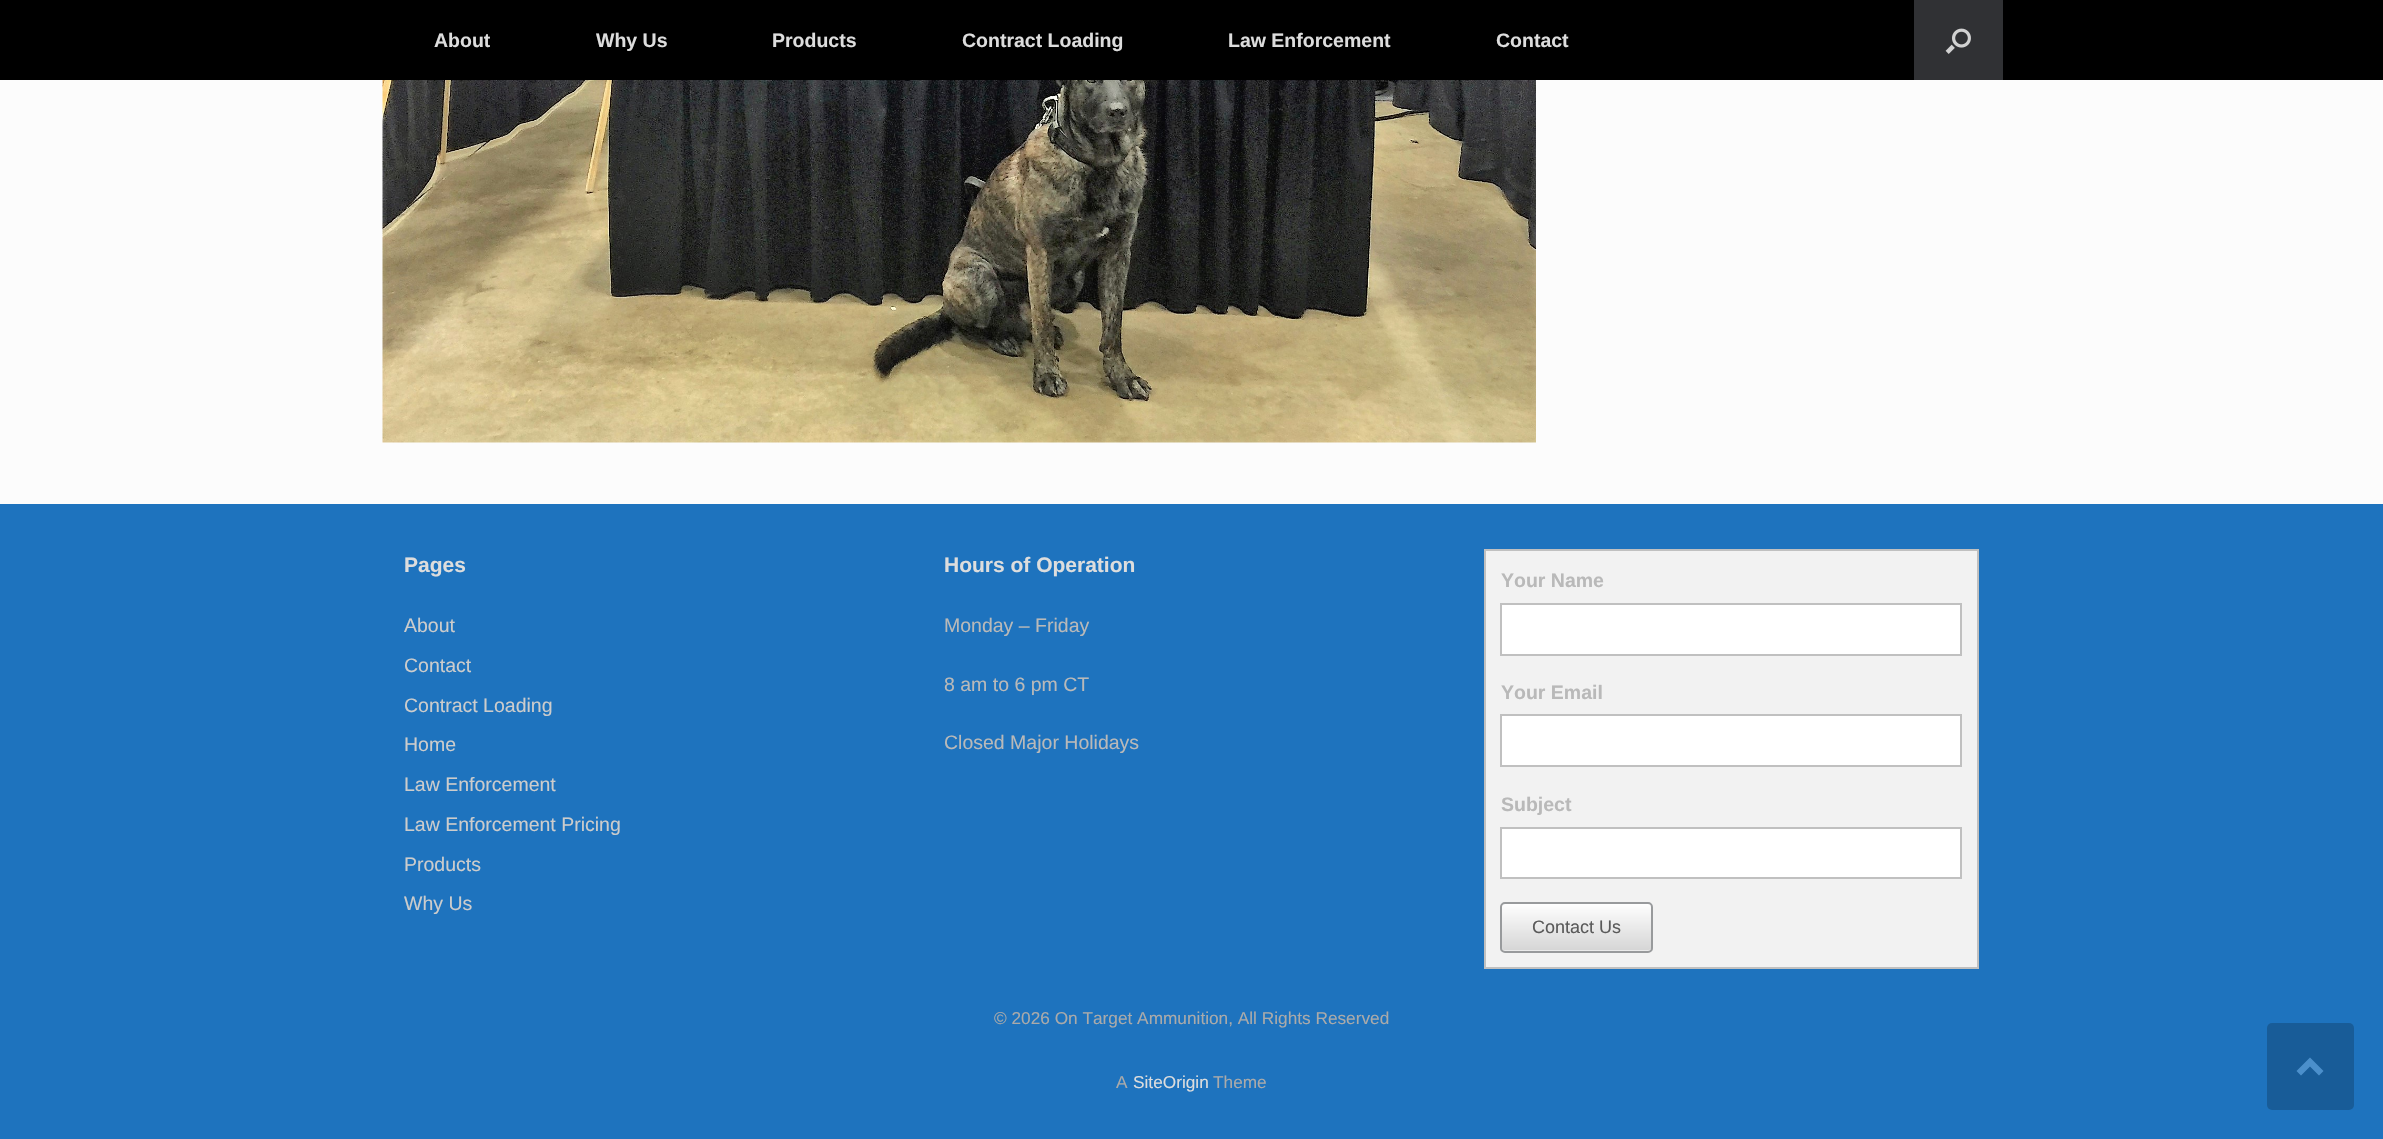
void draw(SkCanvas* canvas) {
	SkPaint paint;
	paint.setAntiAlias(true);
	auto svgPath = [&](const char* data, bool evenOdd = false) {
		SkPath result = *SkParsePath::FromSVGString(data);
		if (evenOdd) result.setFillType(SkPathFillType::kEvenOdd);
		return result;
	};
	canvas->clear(0xff1e73be);
	paint.setColor(0xff000000);
	canvas->drawRect(SkRect::MakeXYWH(0, 0, 2383, 80), paint);
	SkFont f1(fontMgr->matchFamilyStyle("Liberation Sans", SkFontStyle::Bold()), 19.5);
	f1.setSubpixel(true);
	paint.setColor(0xffdddddd);
	canvas->drawString("About", 434, 47, f1, paint);
	canvas->drawString("Why Us", 596, 47, f1, paint);
	canvas->drawString("Products", 772, 47, f1, paint);
	canvas->drawString("Contract Loading", 962, 47, f1, paint);
	canvas->drawString("Law Enforcement", 1228, 47, f1, paint);
	canvas->drawString("Contact", 1496, 47, f1, paint);
	paint.setColor(0xff303134);
	canvas->drawRect(SkRect::MakeXYWH(1914, 0, 89, 80), paint);
	canvas->drawImageRect(SkImages::DeferredFromEncodedData(SkData::MakeFromFileName("img1.png")), SkRect::MakeXYWH(1945, 28, 26, 26), SkSamplingOptions());
	paint.setColor(0xfffcfcfc);
	canvas->drawRect(SkRect::MakeXYWH(0, 80, 2383, 424), paint);
	canvas->drawImageRect(SkImages::DeferredFromEncodedData(SkData::MakeFromFileName("img2.png")), SkRect::MakeXYWH(382, 80, 1154, 363), SkSamplingOptions());
	SkFont f2(fontMgr->matchFamilyStyle("Liberation Sans", SkFontStyle::Bold()), 21);
	f2.setSubpixel(true);
	paint.setColor(0xffdddddd);
	canvas->drawString("Pages", 404, 572, f2, paint);
	SkFont f3(fontMgr->matchFamilyStyle("Liberation Sans", SkFontStyle::Normal()), 19.5);
	f3.setSubpixel(true);
	paint.setColor(0xffcccccc);
	canvas->drawString("About", 404, 632, f3, paint);
	canvas->drawString("Contact", 404, 672, f3, paint);
	canvas->drawString("Contract Loading", 404, 712, f3, paint);
	canvas->drawString("Home", 404, 751, f3, paint);
	canvas->drawString("Law Enforcement", 404, 791, f3, paint);
	canvas->drawString("Law Enforcement Pricing", 404, 831, f3, paint);
	canvas->drawString("Products", 404, 871, f3, paint);
	canvas->drawString("Why Us", 404, 910, f3, paint);
	paint.setColor(0xffdddddd);
	canvas->drawString("Hours of Operation", 944, 572, f2, paint);
	paint.setColor(0xffb9b9b9);
	canvas->drawString("Monday – Friday", 944, 632, f3, paint);
	canvas->drawString("8 am to 6 pm CT", 944, 691, f3, paint);
	canvas->drawString("Closed Major Holidays", 944, 749, f3, paint);
	paint.setColor(0xfff2f2f2);
	canvas->drawRect(SkRect::MakeXYWH(1485, 550, 493, 418), paint);
	paint.setStroke(true);
	paint.setStrokeWidth(2);
	paint.setColor(0xffc0c0c0);
	canvas->drawRect(SkRect::MakeXYWH(1485, 550, 493, 418), paint);
	paint.setStroke(false);
	paint.setColor(0xffb9b9b9);
	canvas->drawString("Your Name", 1501, 587, f1, paint);
	paint.setColor(0xffffffff);
	canvas->drawRect(SkRect::MakeXYWH(1501, 604, 460, 51), paint);
	paint.setStroke(true);
	paint.setColor(0xffc0c0c0);
	canvas->drawRect(SkRect::MakeXYWH(1501, 604, 460, 51), paint);
	paint.setStroke(false);
	paint.setColor(0xffb9b9b9);
	canvas->drawString("Your Email", 1501, 699, f1, paint);
	paint.setColor(0xffffffff);
	canvas->drawRect(SkRect::MakeXYWH(1501, 715, 460, 51), paint);
	paint.setStroke(true);
	paint.setColor(0xffc0c0c0);
	canvas->drawRect(SkRect::MakeXYWH(1501, 715, 460, 51), paint);
	paint.setStroke(false);
	paint.setColor(0xffb9b9b9);
	canvas->drawString("Subject", 1501, 811, f1, paint);
	paint.setColor(0xffffffff);
	canvas->drawRect(SkRect::MakeXYWH(1501, 828, 460, 50), paint);
	paint.setStroke(true);
	paint.setColor(0xffc0c0c0);
	canvas->drawRect(SkRect::MakeXYWH(1501, 828, 460, 50), paint);
	canvas->save();
	canvas->clipPath(svgPath("M1505 902H1648C1651 902 1653 904 1653 907V948C1653 951 1651 953 1648 953H1505C1502 953 1500 951 1500 948V907C1500 904 1502 902 1505 902Z"), true);
	paint.setStroke(false);
	{
		const SkColor colors[] = {0xffd5d5d5, 0xffffffff};
		const float stops[] = {0, 1};
		const SkPoint ends[] = {{1502, 951}, {1502, 903}};
		paint.setShader(SkGradientShader::MakeLinear(ends, colors, stops, 2, SkTileMode::kClamp));
		paint.setAlpha(255);
	}
	canvas->drawRect(SkRect::MakeXYWH(1500, 903, 153, 48), paint);
	canvas->restore();
	paint.setShader(nullptr);
	paint.setColor(0xffeaeaea);
	canvas->drawPath(svgPath("M1502 946V948C1502 950 1503 951 1505 951H1649C1651 951 1652 950 1652 948V946C1652 948 1650 950 1648 950H1504C1503 950 1502 948 1502 946Z"), paint);
	paint.setStroke(true);
	paint.setColor(0xff989a9c);
	canvas->drawRoundRect(SkRect::MakeXYWH(1501, 903, 151, 49), 4, 4, paint);
	SkFont f4(fontMgr->matchFamilyStyle("Liberation Sans", SkFontStyle::Normal()), 18);
	f4.setSubpixel(true);
	paint.setStroke(false);
	paint.setColor(0xff5a5a5a);
	canvas->drawString("Contact Us", 1532, 933, f4, paint);
	SkFont f5(fontMgr->matchFamilyStyle("Liberation Sans", SkFontStyle::Normal()), 17.25);
	f5.setSubpixel(true);
	paint.setColor(0xffaaaaaa);
	canvas->drawString("© 2026 On Target Ammunition, All Rights Reserved", 994, 1024, f5, paint);
	canvas->drawString("A", 1116, 1088, f5, paint);
	paint.setColor(0xffdddddd);
	canvas->drawString("SiteOrigin", 1133, 1088, f5, paint);
	paint.setColor(0xffaaaaaa);
	canvas->drawString("Theme", 1213, 1088, f5, paint);
	paint.setColor(0xff185c98);
	canvas->drawRoundRect(SkRect::MakeXYWH(2267, 1023, 87, 87), 5, 5, paint);
	paint.setColor(0xff4b8fcb);
	canvas->drawPath(svgPath("M2323.5 1071L2310 1057.5L2296.5 1071L2301 1075.5L2310 1066.5L2319 1075.5Z"), paint);
}
